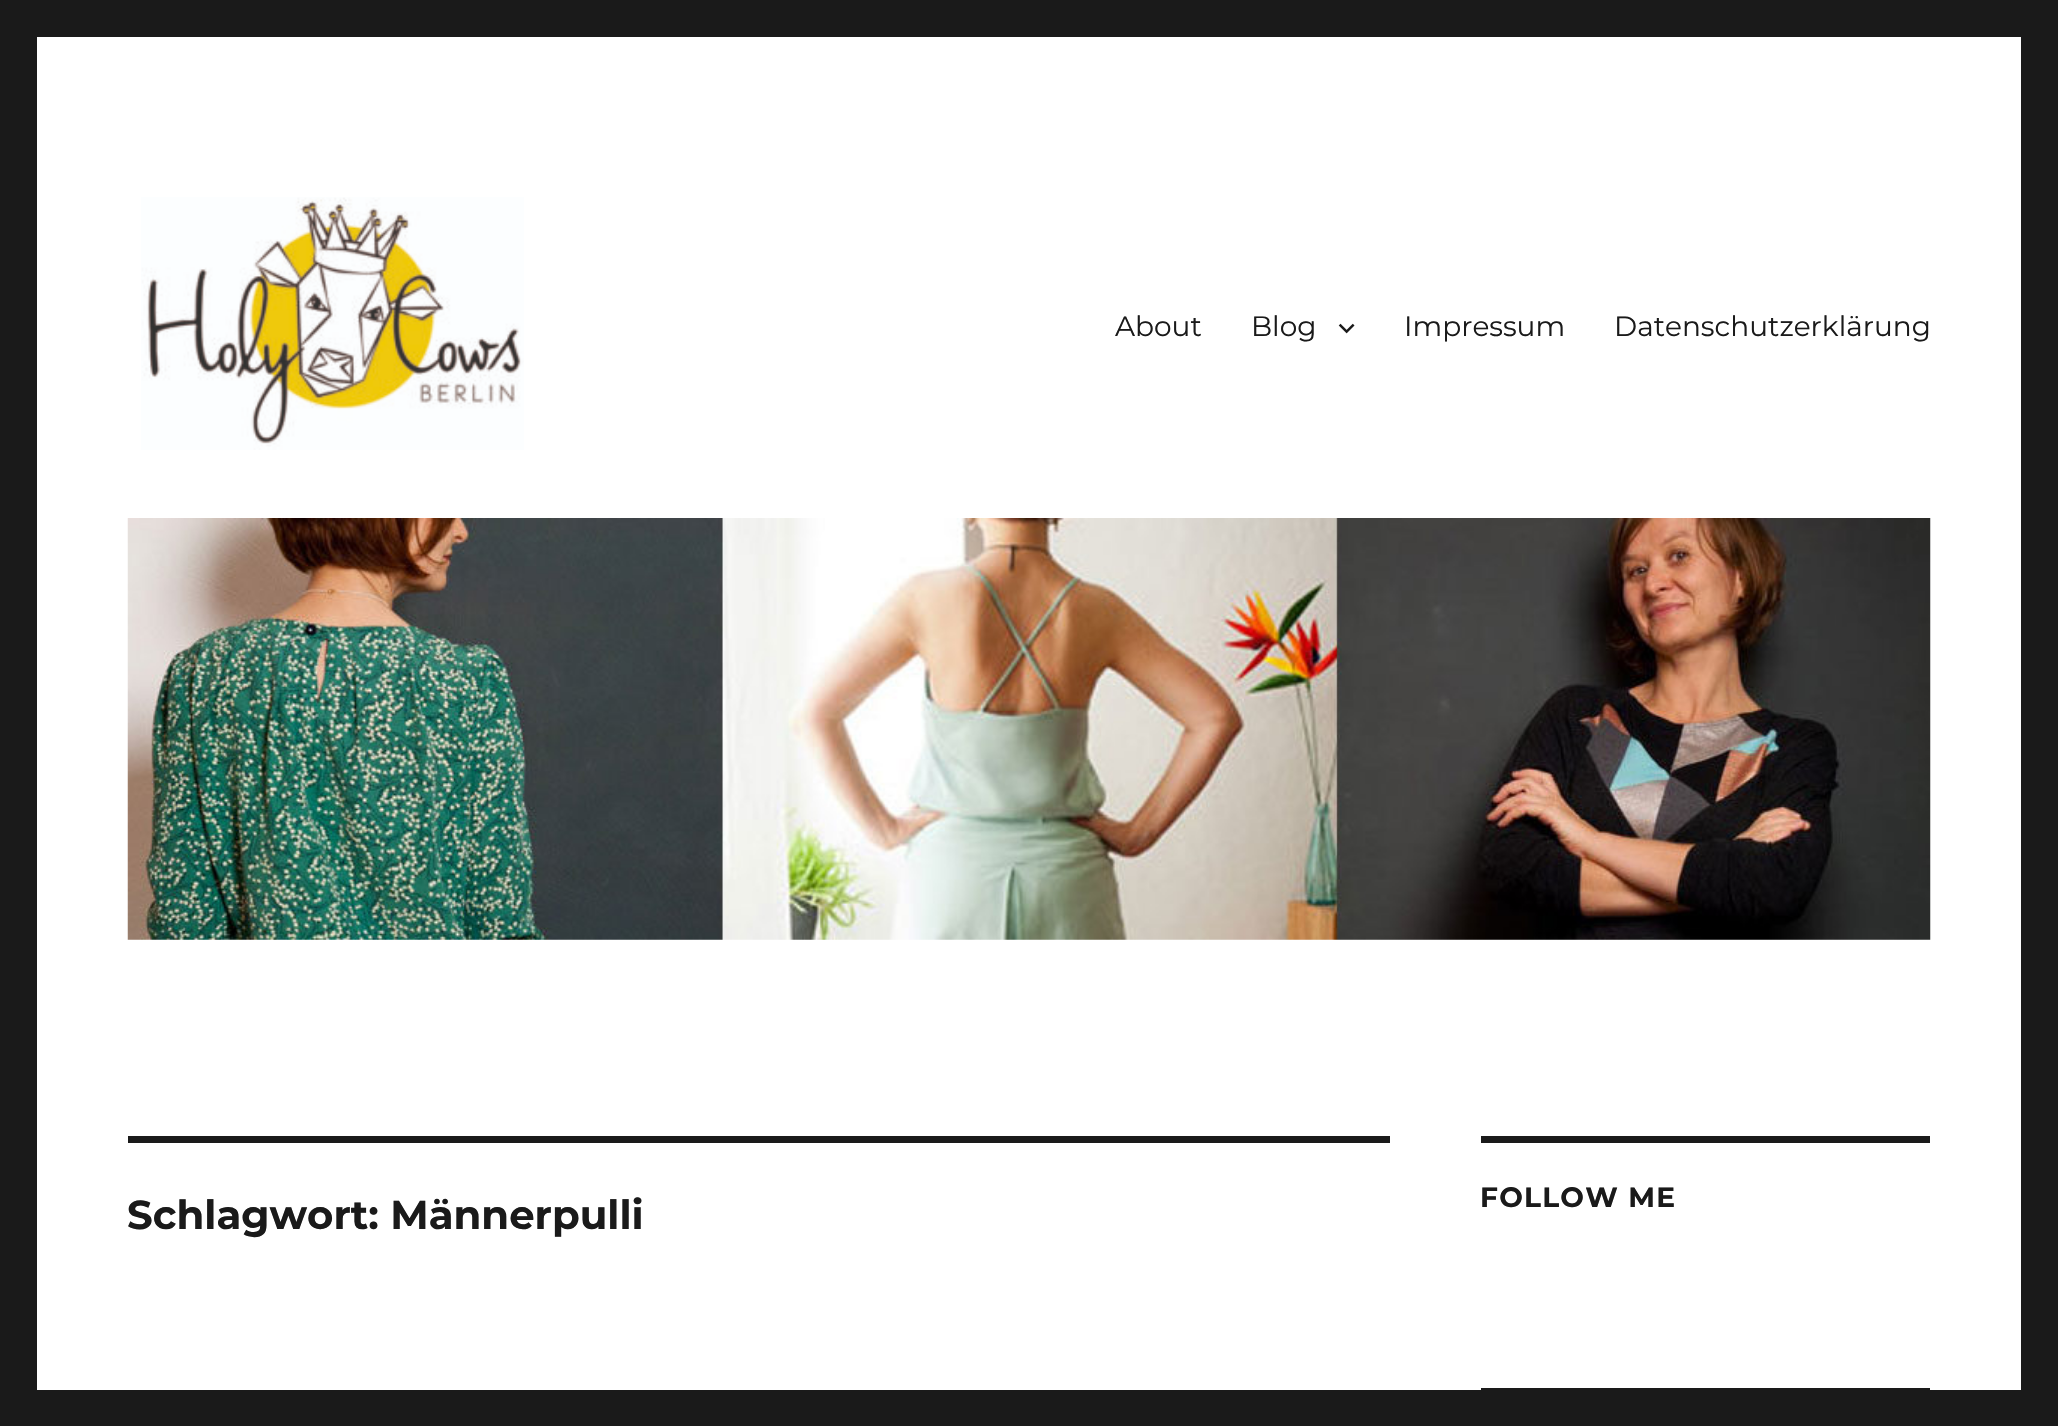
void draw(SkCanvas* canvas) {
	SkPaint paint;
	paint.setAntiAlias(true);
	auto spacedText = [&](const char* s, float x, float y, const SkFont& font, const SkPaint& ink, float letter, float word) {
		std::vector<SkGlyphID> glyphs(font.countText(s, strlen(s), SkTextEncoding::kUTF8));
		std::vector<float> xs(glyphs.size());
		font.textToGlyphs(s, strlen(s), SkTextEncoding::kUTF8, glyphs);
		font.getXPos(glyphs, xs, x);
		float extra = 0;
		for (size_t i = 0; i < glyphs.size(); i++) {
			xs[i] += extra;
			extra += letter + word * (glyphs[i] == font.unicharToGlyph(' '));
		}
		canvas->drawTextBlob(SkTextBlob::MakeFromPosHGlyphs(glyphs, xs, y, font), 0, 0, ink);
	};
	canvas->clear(0xff1a1a1a);
	paint.setColor(0xffffffff);
	canvas->drawRect(SkRect::MakeXYWH(37, 37, 1984, 1353), paint);
	canvas->drawImageRect(SkImages::DeferredFromEncodedData(SkData::MakeFromFileName("img1.png")), SkRect::MakeXYWH(141, 197, 383, 253), SkSamplingOptions());
	SkFont f1(fontMgr->matchFamilyStyle("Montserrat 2", SkFontStyle(100, SkFontStyle::kNormal_Width, SkFontStyle::kUpright_Slant)), 28);
	f1.setSubpixel(true);
	paint.setColor(0xff1a1a1a);
	canvas->drawString("About", 1115, 336, f1, paint);
	canvas->drawString("Blog", 1251, 336, f1, paint);
	canvas->drawImageRect(SkImages::DeferredFromEncodedData(SkData::MakeFromFileName("img2.png")), SkRect::MakeXYWH(1338, 323, 17, 11), SkSamplingOptions());
	canvas->drawString("Impressum", 1404, 336, f1, paint);
	canvas->drawString("Datenschutzerklärung", 1614, 336, f1, paint);
	canvas->drawImageRect(SkImages::DeferredFromEncodedData(SkData::MakeFromFileName("img3.png")), SkRect::MakeXYWH(127, 518, 1804, 422), SkSamplingOptions());
	canvas->drawRect(SkRect::MakeXYWH(128, 1136, 1262, 7), paint);
	SkFont f2(fontMgr->matchFamilyStyle("Montserrat", SkFontStyle(100, SkFontStyle::kNormal_Width, SkFontStyle::kUpright_Slant)), 40.25);
	f2.setSubpixel(true);
	canvas->drawString("Schlagwort: Männerpulli", 127, 1229, f2, paint);
	canvas->drawRect(SkRect::MakeXYWH(1481, 1136, 449, 7), paint);
	SkFont f3(fontMgr->matchFamilyStyle("Montserrat", SkFontStyle(100, SkFontStyle::kNormal_Width, SkFontStyle::kUpright_Slant)), 28);
	f3.setSubpixel(true);
	spacedText("FOLLOW ME", 1480, 1207, f3, paint, 1.25, 0);
	canvas->drawRect(SkRect::MakeXYWH(1481, 1388, 449, 2), paint);
}
